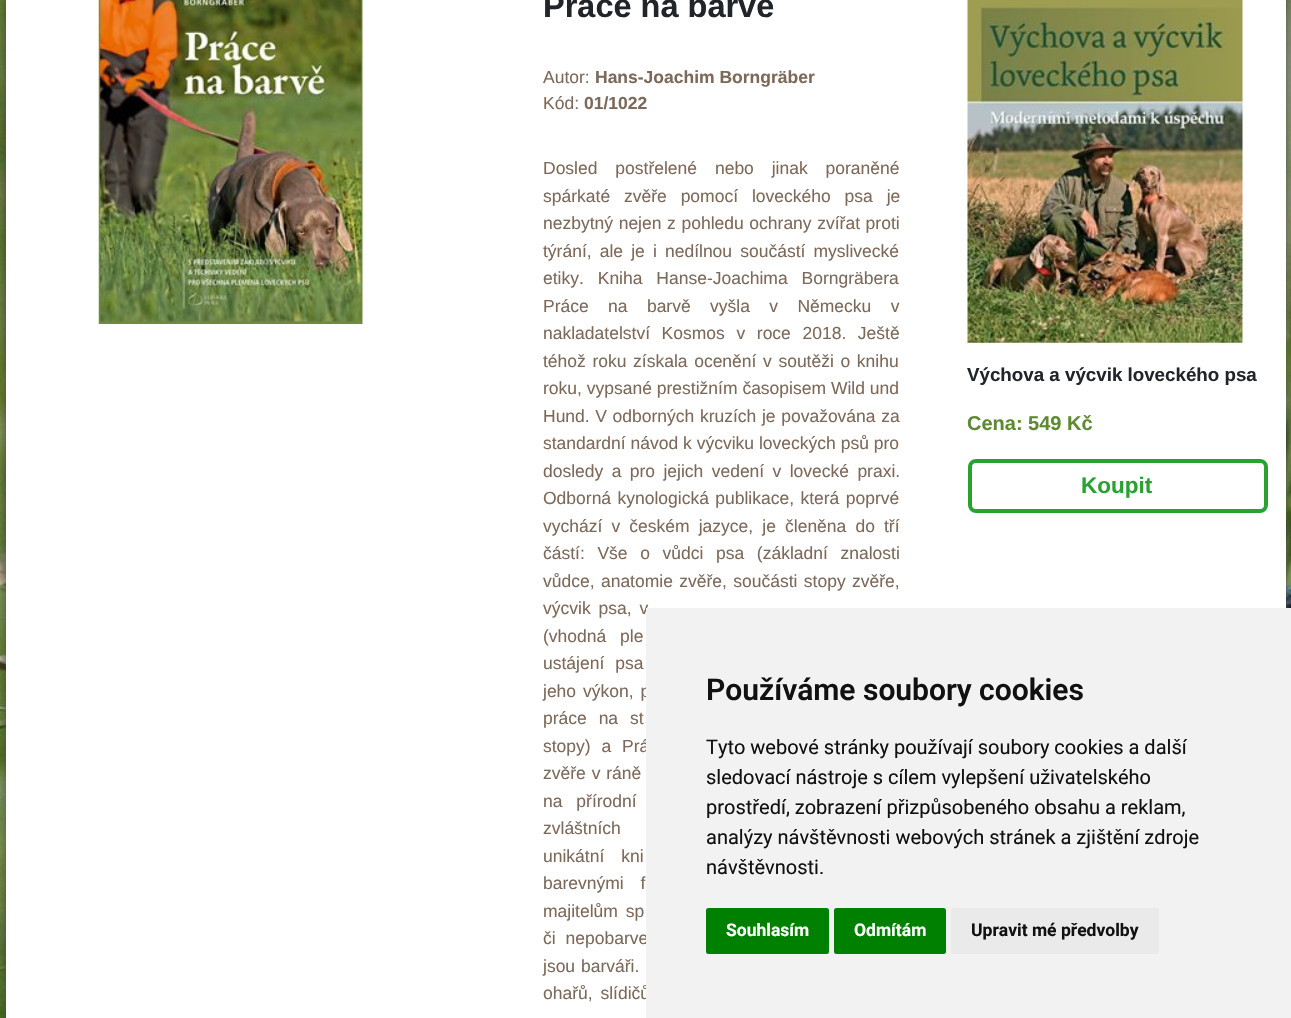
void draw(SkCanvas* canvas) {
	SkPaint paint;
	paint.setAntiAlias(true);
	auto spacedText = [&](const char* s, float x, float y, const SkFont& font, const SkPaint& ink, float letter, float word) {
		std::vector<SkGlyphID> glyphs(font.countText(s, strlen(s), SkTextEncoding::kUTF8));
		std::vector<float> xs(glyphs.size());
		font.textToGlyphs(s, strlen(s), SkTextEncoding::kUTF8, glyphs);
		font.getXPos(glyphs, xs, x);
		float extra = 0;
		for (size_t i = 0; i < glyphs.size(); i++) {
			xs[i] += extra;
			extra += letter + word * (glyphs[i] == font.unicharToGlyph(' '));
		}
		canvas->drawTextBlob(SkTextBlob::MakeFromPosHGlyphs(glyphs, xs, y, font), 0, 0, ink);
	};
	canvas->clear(0xffffffff);
	canvas->drawImageRect(SkImages::DeferredFromEncodedData(SkData::MakeFromFileName("img1.png")), SkRect::MakeXYWH(0, 0, 1291, 1018), SkSamplingOptions());
	paint.setColor(0xff444444);
	paint.setMaskFilter(SkMaskFilter::MakeBlur(kNormal_SkBlurStyle, 6));
	canvas->drawRect(SkRect::MakeXYWH(6, -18, 1280, 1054), paint);
	paint.setMaskFilter(nullptr);
	paint.setColor(0xffffffff);
	canvas->drawRect(SkRect::MakeXYWH(6, 0, 1280, 1018), paint);
	canvas->drawImageRect(SkImages::DeferredFromEncodedData(SkData::MakeFromFileName("img2.png")), SkRect::MakeXYWH(98, 0, 265, 324), SkSamplingOptions());
	SkFont f1(fontMgr->matchFamilyStyle("Liberation Sans", SkFontStyle::Bold()), 32.5);
	f1.setSubpixel(true);
	paint.setColor(0xff212529);
	canvas->drawString("Práce na barvě", 543, 17, f1, paint);
	SkFont f2(fontMgr->matchFamilyStyle("Liberation Sans", SkFontStyle::Normal()), 17.5);
	f2.setSubpixel(true);
	paint.setColor(0xff7d695a);
	canvas->drawString("Autor:", 543, 83, f2, paint);
	SkFont f3(fontMgr->matchFamilyStyle("Liberation Sans", SkFontStyle::Bold()), 17.5);
	f3.setSubpixel(true);
	canvas->drawString("Hans-Joachim Borngräber", 595, 83, f3, paint);
	canvas->drawString("Kód:", 543, 109, f2, paint);
	canvas->drawString("01/1022", 584, 109, f3, paint);
	spacedText("Dosled postřelené nebo jinak poraněné", 543, 174, f2, paint, 0, 13);
	spacedText("spárkaté zvěře pomocí loveckého psa je", 543, 202, f2, paint, 0, 9);
	spacedText("nezbytný nejen z pohledu ochrany zvířat proti", 543, 229, f2, paint, 0, 0.75);
	spacedText("týrání, ale je i nedílnou součástí myslivecké", 543, 257, f2, paint, 0, 3.25);
	spacedText("etiky. Kniha Hanse-Joachima Borngräbera", 543, 284, f2, paint, 0, 9);
	spacedText("Práce na barvě vyšla v Německu v", 543, 312, f2, paint, 0, 14.5);
	spacedText("nakladatelství Kosmos v roce 2018. Ještě", 543, 339, f2, paint, 0, 6.75);
	spacedText("téhož roku získala ocenění v soutěži o knihu", 543, 367, f2, paint, 0, 1.75);
	canvas->drawString("roku, vypsané prestižním časopisem Wild und", 543, 394, f2, paint);
	spacedText("Hund. V odborných kruzích je považována za", 543, 422, f2, paint, 0, 0.75);
	canvas->drawString("standardní návod k výcviku loveckých psů pro", 543, 449, f2, paint);
	spacedText("dosledy a pro jejich vedení v lovecké praxi.", 543, 477, f2, paint, 0, 3.5);
	spacedText("Odborná kynologická publikace, která poprvé", 543, 504, f2, paint, 0, 1.5);
	spacedText("vychází v českém jazyce, je členěna do tří", 543, 532, f2, paint, 0, 4.25);
	spacedText("částí: Vše o vůdci psa (základní znalosti", 543, 559, f2, paint, 0, 7.75);
	spacedText("vůdce, anatomie zvěře, součásti stopy zvěře,", 543, 587, f2, paint, 0, 1.5);
	spacedText("výcvik psa, v", 543, 614, f2, paint, 0, 3);
	spacedText("(vhodná ple", 543, 642, f2, paint, 0, 9);
	spacedText("ustájení psa", 543, 669, f2, paint, 0, 6);
	spacedText("jeho výkon, p", 543, 697, f2, paint, 0, 2);
	spacedText("práce na st", 543, 724, f2, paint, 0, 7);
	spacedText("stopy) a Prá", 543, 752, f2, paint, 0, 6);
	spacedText("zvěře v ráně", 543, 779, f2, paint, 0, 1);
	spacedText("na přírodní", 543, 807, f2, paint, 0, 9);
	spacedText("zvláštních", 543, 834, f2, paint, 0, 21);
	spacedText("unikátní kni", 543, 862, f2, paint, 0, 12);
	spacedText("barevnými f", 543, 889, f2, paint, 0, 12);
	spacedText("majitelům sp", 543, 917, f2, paint, 0, 3);
	spacedText("či nepobarve", 543, 944, f2, paint, 0, 5);
	spacedText("jsou barváři.", 543, 972, f2, paint, 0, 1);
	spacedText("ohařů, slídičů", 543, 999, f2, paint, 0, 3);
	canvas->drawImageRect(SkImages::DeferredFromEncodedData(SkData::MakeFromFileName("img3.png")), SkRect::MakeXYWH(967, 0, 276, 343), SkSamplingOptions());
	SkFont f4(fontMgr->matchFamilyStyle("Liberation Sans", SkFontStyle::Bold()), 18.75);
	f4.setSubpixel(true);
	paint.setColor(0xff212529);
	canvas->drawString("Výchova a výcvik loveckého psa", 967, 381, f4, paint);
	SkFont f5(fontMgr->matchFamilyStyle("Liberation Sans", SkFontStyle::Bold()), 20);
	f5.setSubpixel(true);
	paint.setColor(0xff5e8a34);
	canvas->drawString("Cena: 549 Kč", 967, 430, f5, paint);
	paint.setStroke(true);
	paint.setStrokeWidth(4);
	paint.setColor(0xff29a232);
	canvas->drawRoundRect(SkRect::MakeXYWH(970, 461, 296, 50), 6, 6, paint);
	SkFont f6(fontMgr->matchFamilyStyle("Liberation Sans", SkFontStyle::Bold()), 22.5);
	f6.setSubpixel(true);
	paint.setStroke(false);
	canvas->drawString("Koupit", 1081, 493, f6, paint);
	paint.setColor(0xfff2f2f2);
	canvas->drawRect(SkRect::MakeXYWH(646, 608, 645, 410), paint);
	SkFont f7(fontMgr->matchFamilyStyle("Roboto", SkFontStyle(600, SkFontStyle::kNormal_Width, SkFontStyle::kUpright_Slant)), 30);
	f7.setSubpixel(true);
	paint.setColor(0xff111111);
	canvas->drawString("Používáme soubory cookies", 706, 700, f7, paint);
	SkFont f8(fontMgr->matchFamilyStyle("Roboto", SkFontStyle::Normal()), 20);
	f8.setSubpixel(true);
	canvas->drawString("Tyto webové stránky používají soubory cookies a další", 706, 754, f8, paint);
	canvas->drawString("sledovací nástroje s cílem vylepšení uživatelského", 706, 784, f8, paint);
	canvas->drawString("prostředí, zobrazení přizpůsobeného obsahu a reklam,", 706, 814, f8, paint);
	canvas->drawString("analýzy návštěvnosti webových stránek a zjištění zdroje", 706, 844, f8, paint);
	canvas->drawString("návštěvnosti.", 706, 874, f8, paint);
	paint.setColor(0xff008000);
	canvas->drawRoundRect(SkRect::MakeXYWH(706, 908, 123, 46), 2.5, 2.5, paint);
	SkFont f9(fontMgr->matchFamilyStyle("Roboto", SkFontStyle::Bold()), 17.5);
	f9.setSubpixel(true);
	paint.setColor(0xffffffff);
	canvas->drawString("Souhlasím", 726, 936, f9, paint);
	paint.setColor(0xff008000);
	canvas->drawRoundRect(SkRect::MakeXYWH(834, 908, 112, 46), 2.5, 2.5, paint);
	paint.setColor(0xffffffff);
	canvas->drawString("Odmítám", 854, 936, f9, paint);
	paint.setColor(0xffeaeaea);
	canvas->drawRoundRect(SkRect::MakeXYWH(951, 908, 208, 46), 2.5, 2.5, paint);
	paint.setColor(0xff111111);
	canvas->drawString("Upravit mé předvolby", 971, 936, f9, paint);
}
